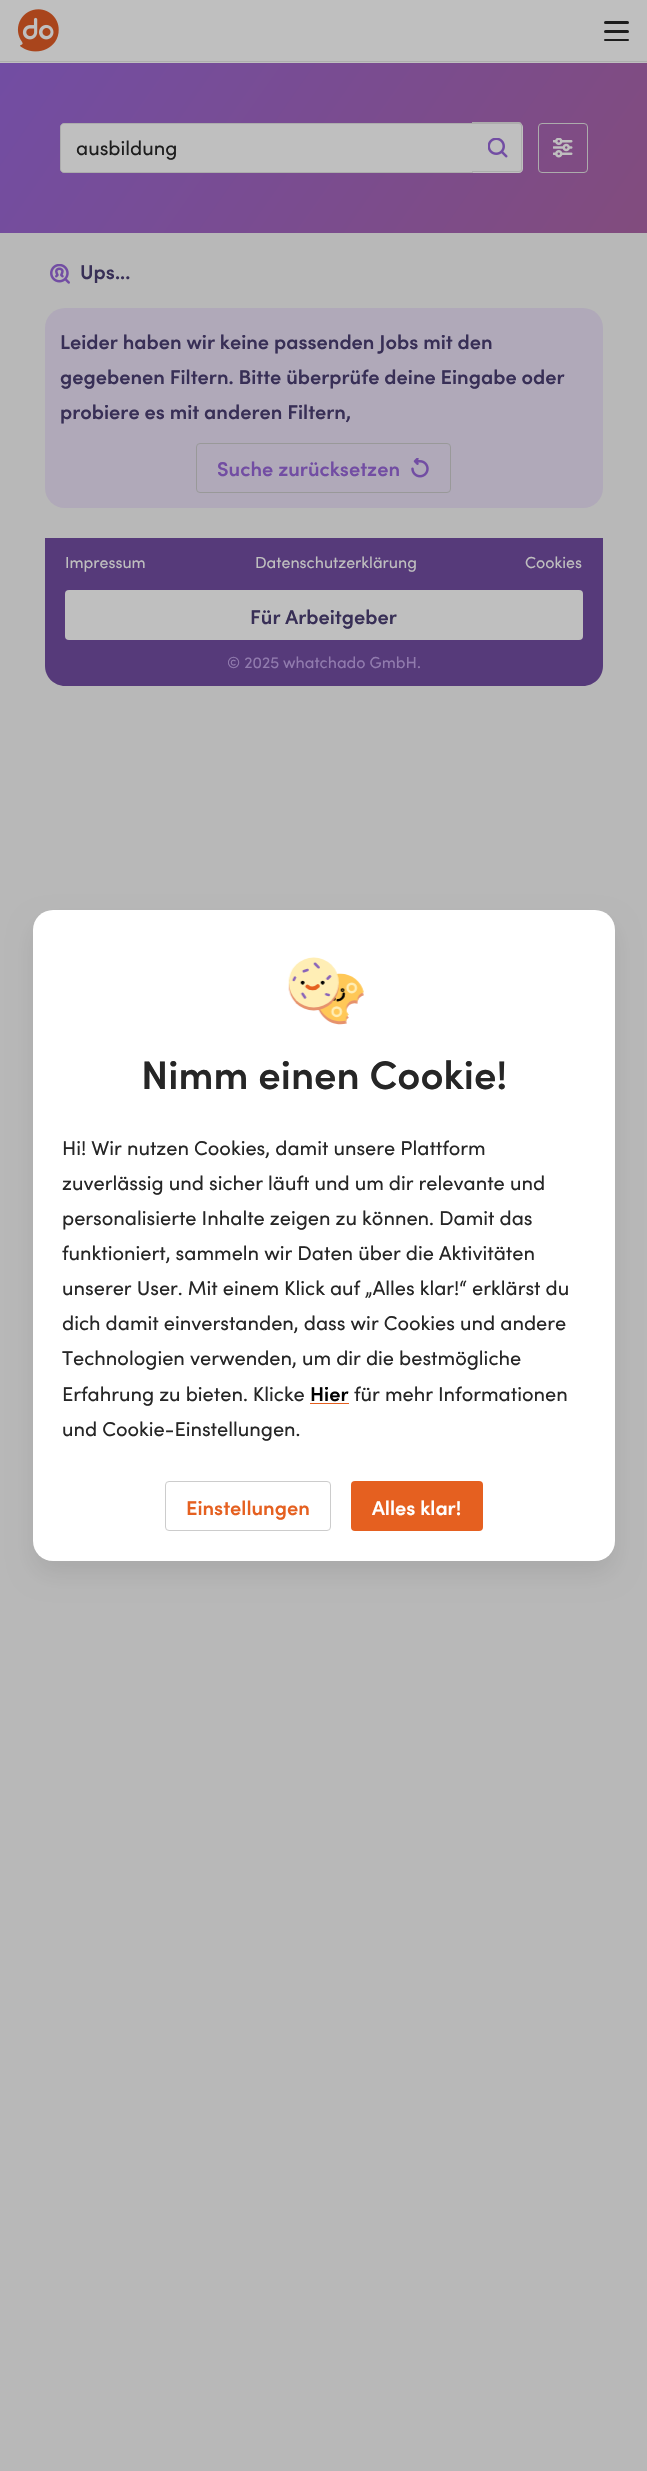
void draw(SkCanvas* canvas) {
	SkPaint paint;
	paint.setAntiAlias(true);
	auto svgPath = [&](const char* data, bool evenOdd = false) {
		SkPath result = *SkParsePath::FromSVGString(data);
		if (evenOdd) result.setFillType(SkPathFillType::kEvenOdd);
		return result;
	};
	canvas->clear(0xffb8b8b8);
	paint.setColor(0xffbfbfbf);
	canvas->drawRect(SkRect::MakeXYWH(0, 0, 647, 63), paint);
	paint.setColor(0xffadadad);
	canvas->drawRect(SkRect::MakeXYWH(0, 61, 647, 1), paint);
	canvas->drawImageRect(SkImages::DeferredFromEncodedData(SkData::MakeFromFileName("img1.png")), SkRect::MakeXYWH(17, 9, 42, 43), SkSamplingOptions());
	paint.setColor(0xff1d1d1d);
	canvas->drawRoundRect(SkRect::MakeXYWH(604, 39, 25, 2), 1, 1, paint);
	canvas->drawRoundRect(SkRect::MakeXYWH(604, 21, 25, 3), 1.5, 1.5, paint);
	canvas->drawRoundRect(SkRect::MakeXYWH(604, 30, 25, 3), 1.5, 1.5, paint);
	{
		const SkColor colors[] = {0xffac4818, 0xff724da3};
		const float stops[] = {0, 1};
		const SkPoint ends[] = {{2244, 897}, {346, -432}};
		paint.setShader(SkGradientShader::MakeLinear(ends, colors, stops, 2, SkTileMode::kClamp));
		paint.setAlpha(255);
	}
	canvas->drawRect(SkRect::MakeXYWH(0, 63, 647, 170), paint);
	paint.setShader(nullptr);
	paint.setColor(0xffbfbfbf);
	canvas->drawPath(svgPath("M64 123.5H473.5V172.5H64C62 172.5 60.5 171 60.5 169V127C60.5 125 62 123.5 64 123.5Z"), paint);
	paint.setStroke(true);
	paint.setStrokeWidth(1);
	paint.setColor(0xffacacac);
	canvas->drawPath(svgPath("M64 123.5H473.5V172.5H64C62 172.5 60.5 171 60.5 169V127C60.5 125 62 123.5 64 123.5Z"), paint);
	SkFont f1(fontMgr->matchFamilyStyle("Sofia", SkFontStyle::Normal()), 20);
	f1.setSubpixel(true);
	paint.setStroke(false);
	paint.setColor(0xff1d1d1d);
	canvas->drawString("ausbildung", 76, 155, f1, paint);
	paint.setColor(0xffbfbfbf);
	canvas->drawPath(svgPath("M473 123H519C521 123 523 125 523 127V169C523 171 521 173 519 173H473Z"), paint);
	paint.setColor(0xffacacac);
	canvas->drawPath(svgPath("M472 122H519C521 122 522 124 522 126V169C522 171 521 172 519 172H472ZM472 124H519C520 124 521 125 521 126V169C521 170 520 171 519 171H472Z", true), paint);
	canvas->drawImageRect(SkImages::DeferredFromEncodedData(SkData::MakeFromFileName("img2.png")), SkRect::MakeXYWH(488, 138, 20, 20), SkSamplingOptions());
	paint.setStroke(true);
	canvas->drawRoundRect(SkRect::MakeXYWH(538.5, 123.5, 49, 49), 3.5, 3.5, paint);
	canvas->drawImageRect(SkImages::DeferredFromEncodedData(SkData::MakeFromFileName("img3.png")), SkRect::MakeXYWH(553, 138, 20, 20), SkSamplingOptions());
	canvas->drawImageRect(SkImages::DeferredFromEncodedData(SkData::MakeFromFileName("img4.png")), SkRect::MakeXYWH(50, 264, 20, 20), SkSamplingOptions());
	canvas->save();
	canvas->clipRect(SkRect::MakeXYWH(80, 258, 50, 25));
	SkFont f2(fontMgr->matchFamilyStyle("Sofia", SkFontStyle(600, SkFontStyle::kNormal_Width, SkFontStyle::kUpright_Slant)), 20);
	f2.setSubpixel(true);
	paint.setStroke(false);
	paint.setColor(0xff382f56);
	canvas->drawString("Ups...", 80, 279, f2, paint);
	canvas->restore();
	paint.setColor(0xffb0a9b9);
	canvas->drawRoundRect(SkRect::MakeXYWH(45, 308, 558, 200), 20, 20, paint);
	paint.setColor(0xff382f56);
	canvas->drawString("Leider haben wir keine passenden Jobs mit den", 60, 349, f2, paint);
	canvas->drawString("gegebenen Filtern. Bitte überprüfe deine Eingabe oder", 60, 384, f2, paint);
	canvas->drawString("probiere es mit anderen Filtern,", 60, 419, f2, paint);
	paint.setStroke(true);
	paint.setColor(0xff999999);
	canvas->drawRoundRect(SkRect::MakeXYWH(196.5, 443.5, 254, 49), 3.5, 3.5, paint);
	paint.setStroke(false);
	paint.setColor(0xff724da3);
	canvas->drawString("Suche zurücksetzen", 217, 476, f2, paint);
	canvas->drawImageRect(SkImages::DeferredFromEncodedData(SkData::MakeFromFileName("img5.png")), SkRect::MakeXYWH(411, 458, 18, 20), SkSamplingOptions());
	paint.setColor(0xff563a7a);
	canvas->drawPath(svgPath("M45 538H603V666C603 677 594 686 583 686H65C54 686 45 677 45 666Z"), paint);
	SkFont f3(fontMgr->matchFamilyStyle("Sofia", SkFontStyle::Normal()), 16);
	f3.setSubpixel(true);
	paint.setColor(0xffbfbfbf);
	canvas->drawString("Impressum", 65, 568, f3, paint);
	canvas->drawString("Datenschutzerklärung", 255, 568, f3, paint);
	canvas->drawString("Cookies", 525, 568, f3, paint);
	canvas->drawRoundRect(SkRect::MakeXYWH(65, 590, 518, 50), 4, 4, paint);
	paint.setColor(0xff382f56);
	canvas->drawString("Für Arbeitgeber", 250, 624, f2, paint);
	paint.setColor(0xff917bae);
	canvas->drawString("© 2025 whatchado GmbH.", 227, 668, f3, paint);
	paint.setColor(0x14000000);
	paint.setMaskFilter(SkMaskFilter::MakeBlur(kNormal_SkBlurStyle, 12.5));
	canvas->drawRoundRect(SkRect::MakeXYWH(33, 923, 582, 651), 20, 20, paint);
	paint.setMaskFilter(nullptr);
	paint.setColor(0xffffffff);
	canvas->drawRoundRect(SkRect::MakeXYWH(33, 910, 582, 651), 20, 20, paint);
	canvas->drawImageRect(SkImages::DeferredFromEncodedData(SkData::MakeFromFileName("img6.png")), SkRect::MakeXYWH(288, 957, 76, 68), SkSamplingOptions());
	SkFont f4(fontMgr->matchFamilyStyle("Sofia", SkFontStyle(600, SkFontStyle::kNormal_Width, SkFontStyle::kUpright_Slant)), 40);
	f4.setSubpixel(true);
	paint.setColor(0xff262626);
	canvas->drawString("Nimm einen Cookie!", 141, 1089, f4, paint);
	canvas->drawString("Hi! Wir nutzen Cookies, damit unsere Plattform", 62, 1155, f1, paint);
	canvas->drawString("zuverlässig und sicher läuft und um dir relevante und", 62, 1190, f1, paint);
	canvas->drawString("personalisierte Inhalte zeigen zu können. Damit das", 62, 1225, f1, paint);
	canvas->drawString("funktioniert, sammeln wir Daten über die Aktivitäten", 62, 1260, f1, paint);
	canvas->drawString("unserer User. Mit einem Klick auf „Alles klar!“ erklärst du", 62, 1295, f1, paint);
	canvas->drawString("dich damit einverstanden, dass wir Cookies und andere", 62, 1330, f1, paint);
	canvas->drawString("Technologien verwenden, um dir die bestmögliche", 62, 1365, f1, paint);
	canvas->drawString("Erfahrung zu bieten. Klicke", 62, 1401, f1, paint);
	paint.setColor(0xff000000);
	canvas->drawString("Hier", 310, 1401, f2, paint);
	paint.setColor(0xffe56020);
	canvas->drawRect(SkRect::MakeXYWH(310, 1403, 39, 1), paint);
	paint.setColor(0xff262626);
	canvas->drawString("für mehr Informationen", 354, 1401, f1, paint);
	canvas->drawString("und Cookie-Einstellungen.", 62, 1436, f1, paint);
	paint.setStroke(true);
	paint.setColor(0xffcccccc);
	canvas->drawRoundRect(SkRect::MakeXYWH(165.5, 1481.5, 165, 49), 3.5, 3.5, paint);
	paint.setStroke(false);
	paint.setColor(0xffe56020);
	canvas->drawString("Einstellungen", 186, 1515, f2, paint);
	canvas->drawRoundRect(SkRect::MakeXYWH(351, 1481, 132, 50), 4, 4, paint);
	paint.setColor(0xffffffff);
	canvas->drawString("Alles klar!", 372, 1515, f2, paint);
}
